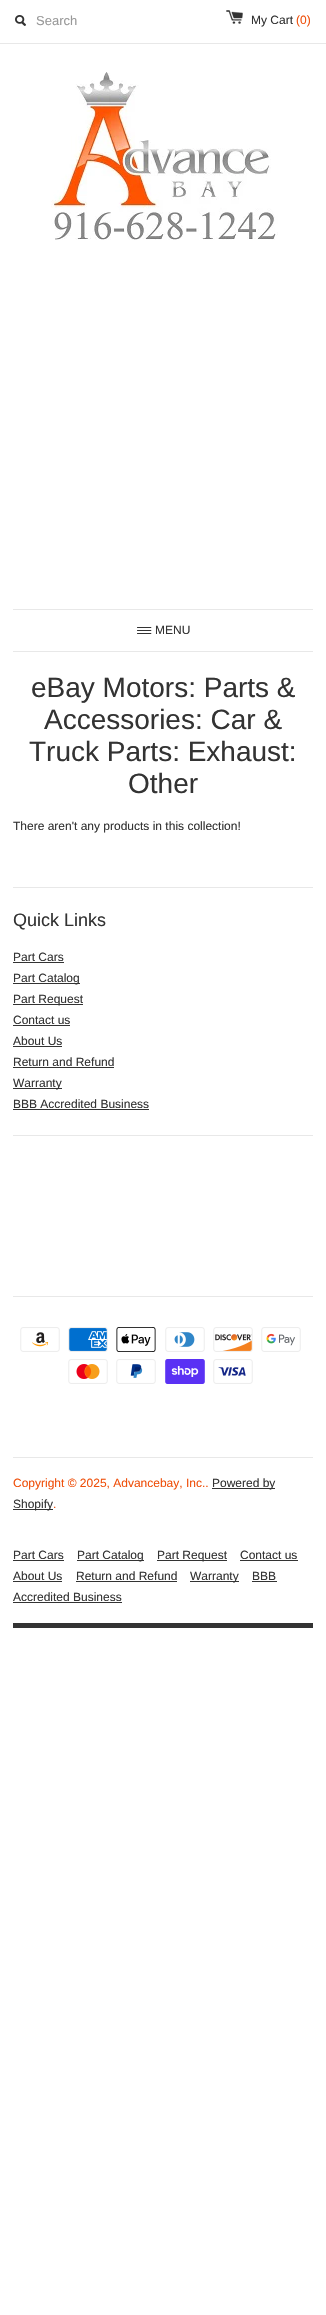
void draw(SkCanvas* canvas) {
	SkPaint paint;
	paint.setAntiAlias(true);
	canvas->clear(0xffffffff);
	paint.setColor(0xffe8e8e8);
	canvas->drawRect(SkRect::MakeXYWH(0, 43, 326, 1), paint);
	canvas->drawImageRect(SkImages::DeferredFromEncodedData(SkData::MakeFromFileName("img1.png")), SkRect::MakeXYWH(15, 15, 11, 11), SkSamplingOptions());
	SkFont f1(fontMgr->matchFamilyStyle("Liberation Sans", SkFontStyle::Normal()), 13);
	f1.setSubpixel(true);
	paint.setColor(0xff999999);
	canvas->drawString("Search", 36, 25, f1, paint);
	canvas->drawImageRect(SkImages::DeferredFromEncodedData(SkData::MakeFromFileName("img2.png")), SkRect::MakeXYWH(226, 10, 17, 14), SkSamplingOptions());
	SkFont f2(fontMgr->matchFamilyStyle("Liberation Sans", SkFontStyle::Normal()), 12);
	f2.setSubpixel(true);
	paint.setColor(0xff333333);
	canvas->drawString("My Cart", 251, 24, f2, paint);
	paint.setColor(0xffef4f0a);
	canvas->drawString("(0)", 296, 24, f2, paint);
	canvas->drawImageRect(SkImages::DeferredFromEncodedData(SkData::MakeFromFileName("img3.png")), SkRect::MakeXYWH(51, 72, 227, 168), SkSamplingOptions());
	paint.setColor(0xffe8e8e8);
	canvas->drawRect(SkRect::MakeXYWH(13, 609, 300, 1), paint);
	canvas->drawImageRect(SkImages::DeferredFromEncodedData(SkData::MakeFromFileName("img4.png")), SkRect::MakeXYWH(137, 627, 15, 7), SkSamplingOptions());
	paint.setColor(0xff333333);
	canvas->drawString("MENU", 155, 634, f2, paint);
	paint.setColor(0xffe8e8e8);
	canvas->drawRect(SkRect::MakeXYWH(13, 651, 300, 1), paint);
	SkFont f3(fontMgr->matchFamilyStyle("Liberation Sans", SkFontStyle::Normal()), 28);
	f3.setSubpixel(true);
	paint.setColor(0xff333333);
	canvas->drawString("eBay Motors: Parts &", 31, 697, f3, paint);
	canvas->drawString("Accessories: Car &", 44, 729, f3, paint);
	canvas->drawString("Truck Parts: Exhaust:", 29, 761, f3, paint);
	canvas->drawString("Other", 128, 793, f3, paint);
	canvas->drawString("There aren't any products in this collection!", 13, 830, f2, paint);
	canvas->drawRect(SkRect::MakeXYWH(13, 1623, 300, 5), paint);
	paint.setColor(0xffe8e8e8);
	canvas->drawRect(SkRect::MakeXYWH(13, 887, 300, 1), paint);
	canvas->drawRect(SkRect::MakeXYWH(13, 1135, 300, 1), paint);
	SkFont f4(fontMgr->matchFamilyStyle("Liberation Sans", SkFontStyle::Normal()), 18);
	f4.setSubpixel(true);
	paint.setColor(0xff333333);
	canvas->drawString("Quick Links", 13, 926, f4, paint);
	canvas->drawString("Part Cars", 13, 961, f2, paint);
	canvas->drawRect(SkRect::MakeXYWH(13, 962, 51, 1), paint);
	canvas->drawRect(SkRect::MakeXYWH(13, 983, 67, 1), paint);
	canvas->drawString("Part Catalog", 13, 982, f2, paint);
	canvas->drawRect(SkRect::MakeXYWH(13, 1004, 70, 1), paint);
	canvas->drawString("Part Request", 13, 1003, f2, paint);
	canvas->drawString("Contact us", 13, 1024, f2, paint);
	canvas->drawRect(SkRect::MakeXYWH(13, 1025, 57, 1), paint);
	canvas->drawString("About Us", 13, 1045, f2, paint);
	canvas->drawRect(SkRect::MakeXYWH(13, 1046, 49, 1), paint);
	canvas->drawString("Return and Refund", 13, 1066, f2, paint);
	canvas->drawRect(SkRect::MakeXYWH(13, 1067, 101, 1), paint);
	canvas->drawRect(SkRect::MakeXYWH(13, 1088, 49, 1), paint);
	canvas->drawString("Warranty", 13, 1087, f2, paint);
	canvas->drawString("BBB Accredited Business", 13, 1108, f2, paint);
	canvas->drawRect(SkRect::MakeXYWH(13, 1109, 136, 1), paint);
	paint.setColor(0xffe8e8e8);
	canvas->drawRect(SkRect::MakeXYWH(13, 1296, 300, 1), paint);
	canvas->drawRect(SkRect::MakeXYWH(13, 1457, 300, 1), paint);
	canvas->drawImageRect(SkImages::DeferredFromEncodedData(SkData::MakeFromFileName("img5.png")), SkRect::MakeXYWH(20, 1327, 40, 25), SkSamplingOptions());
	canvas->drawImageRect(SkImages::DeferredFromEncodedData(SkData::MakeFromFileName("img6.png")), SkRect::MakeXYWH(68, 1327, 40, 25), SkSamplingOptions());
	canvas->drawImageRect(SkImages::DeferredFromEncodedData(SkData::MakeFromFileName("img7.png")), SkRect::MakeXYWH(116, 1327, 40, 25), SkSamplingOptions());
	canvas->drawImageRect(SkImages::DeferredFromEncodedData(SkData::MakeFromFileName("img8.png")), SkRect::MakeXYWH(165, 1327, 40, 25), SkSamplingOptions());
	canvas->drawImageRect(SkImages::DeferredFromEncodedData(SkData::MakeFromFileName("img9.png")), SkRect::MakeXYWH(213, 1327, 40, 25), SkSamplingOptions());
	canvas->drawImageRect(SkImages::DeferredFromEncodedData(SkData::MakeFromFileName("img10.png")), SkRect::MakeXYWH(261, 1327, 40, 25), SkSamplingOptions());
	canvas->drawImageRect(SkImages::DeferredFromEncodedData(SkData::MakeFromFileName("img11.png")), SkRect::MakeXYWH(68, 1359, 40, 25), SkSamplingOptions());
	canvas->drawImageRect(SkImages::DeferredFromEncodedData(SkData::MakeFromFileName("img12.png")), SkRect::MakeXYWH(116, 1359, 40, 25), SkSamplingOptions());
	canvas->drawImageRect(SkImages::DeferredFromEncodedData(SkData::MakeFromFileName("img13.png")), SkRect::MakeXYWH(165, 1359, 40, 25), SkSamplingOptions());
	canvas->drawImageRect(SkImages::DeferredFromEncodedData(SkData::MakeFromFileName("img14.png")), SkRect::MakeXYWH(213, 1359, 40, 25), SkSamplingOptions());
	paint.setColor(0xffef4f0a);
	canvas->drawString("Copyright © 2025, Advancebay, Inc..", 13, 1487, f2, paint);
	paint.setColor(0xff333333);
	canvas->drawRect(SkRect::MakeXYWH(212, 1488, 63, 1), paint);
	canvas->drawString("Powered by", 212, 1487, f2, paint);
	canvas->drawRect(SkRect::MakeXYWH(13, 1509, 40, 1), paint);
	canvas->drawString("Shopify", 13, 1508, f2, paint);
	paint.setColor(0xffef4f0a);
	canvas->drawString(".", 53, 1508, f2, paint);
	paint.setColor(0xff333333);
	canvas->drawString("Part Cars", 13, 1559, f2, paint);
	canvas->drawRect(SkRect::MakeXYWH(13, 1560, 51, 1), paint);
	canvas->drawRect(SkRect::MakeXYWH(77, 1560, 67, 1), paint);
	canvas->drawString("Part Catalog", 77, 1559, f2, paint);
	canvas->drawRect(SkRect::MakeXYWH(157, 1560, 70, 1), paint);
	canvas->drawString("Part Request", 157, 1559, f2, paint);
	canvas->drawString("Contact us", 240, 1559, f2, paint);
	canvas->drawRect(SkRect::MakeXYWH(240, 1560, 58, 1), paint);
	canvas->drawString("About Us", 13, 1580, f2, paint);
	canvas->drawRect(SkRect::MakeXYWH(13, 1581, 49, 1), paint);
	canvas->drawString("Return and Refund", 76, 1580, f2, paint);
	canvas->drawRect(SkRect::MakeXYWH(76, 1581, 101, 1), paint);
	canvas->drawRect(SkRect::MakeXYWH(190, 1581, 49, 1), paint);
	canvas->drawString("Warranty", 190, 1580, f2, paint);
	canvas->drawString("BBB", 252, 1580, f2, paint);
	canvas->drawRect(SkRect::MakeXYWH(252, 1581, 25, 1), paint);
	canvas->drawString("Accredited Business", 13, 1601, f2, paint);
	canvas->drawRect(SkRect::MakeXYWH(13, 1602, 109, 1), paint);
}
